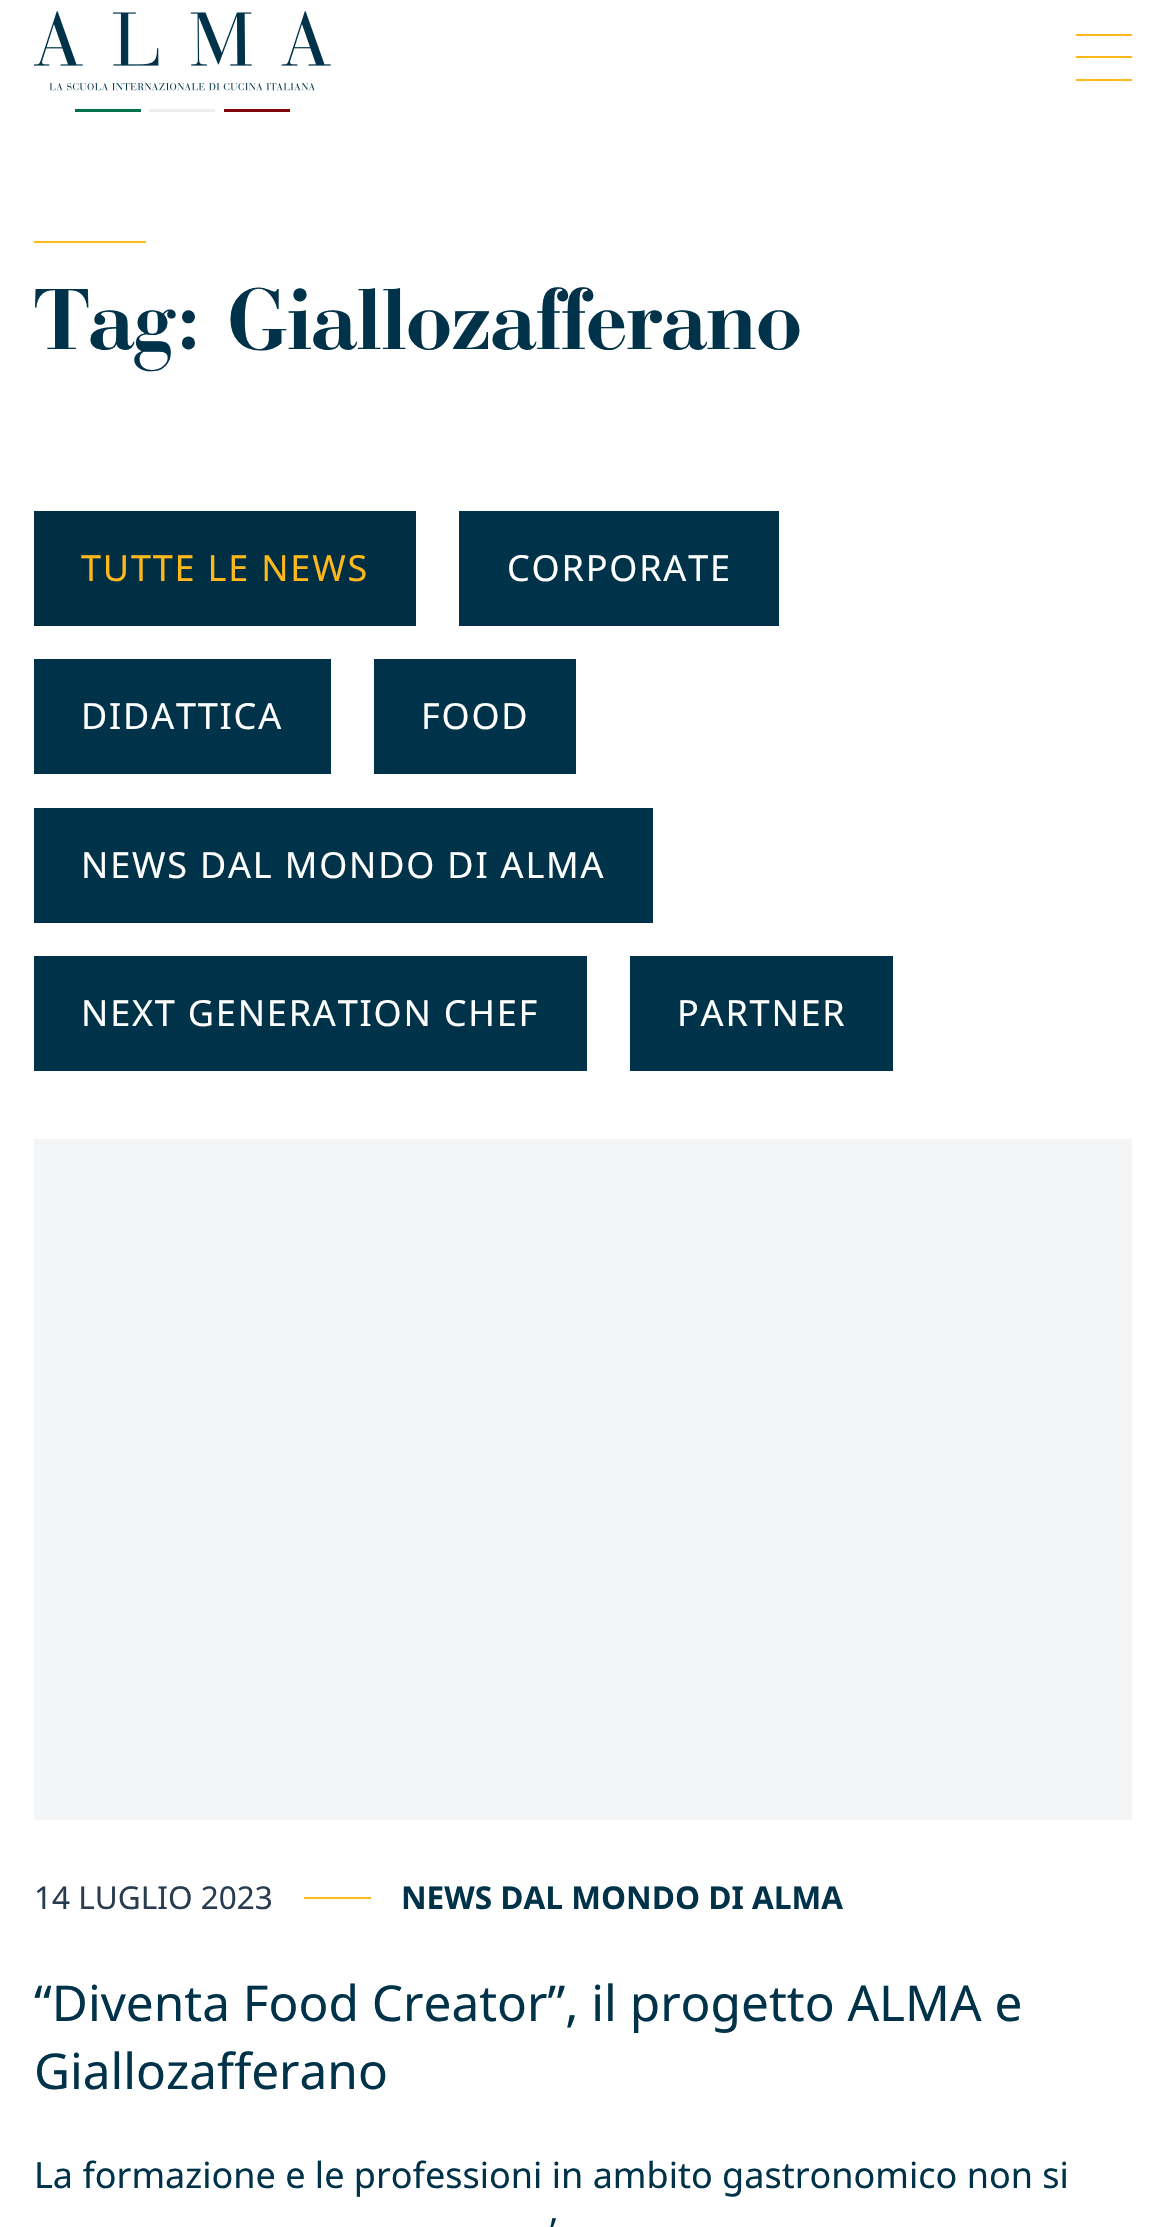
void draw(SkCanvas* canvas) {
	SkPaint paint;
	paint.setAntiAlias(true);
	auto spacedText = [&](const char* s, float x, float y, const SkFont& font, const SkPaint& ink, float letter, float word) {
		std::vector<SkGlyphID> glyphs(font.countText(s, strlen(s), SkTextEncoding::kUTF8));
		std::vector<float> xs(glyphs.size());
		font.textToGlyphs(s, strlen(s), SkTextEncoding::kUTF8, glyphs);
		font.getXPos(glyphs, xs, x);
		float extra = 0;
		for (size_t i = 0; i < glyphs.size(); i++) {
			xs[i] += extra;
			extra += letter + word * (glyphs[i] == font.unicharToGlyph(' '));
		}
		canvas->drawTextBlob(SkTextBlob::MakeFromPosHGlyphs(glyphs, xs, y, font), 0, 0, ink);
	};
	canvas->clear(0xffffffff);
	canvas->drawImageRect(SkImages::DeferredFromEncodedData(SkData::MakeFromFileName("img1.png")), SkRect::MakeXYWH(34, 11, 297, 101), SkSamplingOptions());
	paint.setColor(0xffffb81c);
	canvas->drawRect(SkRect::MakeXYWH(1076, 34, 56, 2), paint);
	canvas->drawRect(SkRect::MakeXYWH(1076, 56, 56, 2), paint);
	canvas->drawRect(SkRect::MakeXYWH(1076, 79, 56, 2), paint);
	canvas->drawRect(SkRect::MakeXYWH(34, 241, 112, 2), paint);
	SkFont f1(fontMgr->matchFamilyStyle("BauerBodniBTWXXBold", SkFontStyle::Normal()), 90);
	f1.setSubpixel(true);
	paint.setColor(0xff003349);
	canvas->drawString("Tag: Giallozafferano", 34, 349, f1, paint);
	paint.setColor(0xff002f44);
	canvas->drawRect(SkRect::MakeXYWH(34, 511, 382, 115), paint);
	SkFont f2(fontMgr->matchFamilyStyle("Noto Sans", SkFontStyle::Normal()), 36);
	f2.setSubpixel(true);
	paint.setColor(0xffffb81c);
	spacedText("TUTTE LE NEWS", 81, 581, f2, paint, 1.8, 0);
	paint.setColor(0xff003349);
	canvas->drawRect(SkRect::MakeXYWH(459, 511, 320, 115), paint);
	paint.setColor(0xffffffff);
	spacedText("CORPORATE", 507, 581, f2, paint, 1.8, 0);
	paint.setColor(0xff003349);
	canvas->drawRect(SkRect::MakeXYWH(34, 659, 297, 115), paint);
	paint.setColor(0xffffffff);
	spacedText("DIDATTICA", 81, 729, f2, paint, 1.8, 0);
	paint.setColor(0xff003349);
	canvas->drawRect(SkRect::MakeXYWH(374, 659, 202, 115), paint);
	paint.setColor(0xffffffff);
	spacedText("FOOD", 421, 729, f2, paint, 1.8, 0);
	paint.setColor(0xff003349);
	canvas->drawRect(SkRect::MakeXYWH(34, 808, 619, 115), paint);
	paint.setColor(0xffffffff);
	spacedText("NEWS DAL MONDO DI ALMA", 81, 878, f2, paint, 1.8, 0);
	paint.setColor(0xff003349);
	canvas->drawRect(SkRect::MakeXYWH(34, 956, 553, 115), paint);
	paint.setColor(0xffffffff);
	spacedText("NEXT GENERATION CHEF", 81, 1026, f2, paint, 1.8, 0);
	paint.setColor(0xff003349);
	canvas->drawRect(SkRect::MakeXYWH(630, 956, 263, 115), paint);
	paint.setColor(0xffffffff);
	spacedText("PARTNER", 677, 1026, f2, paint, 1.8, 0);
	paint.setColor(0xfff3f5f6);
	canvas->drawRect(SkRect::MakeXYWH(34, 1139, 1098, 681), paint);
	SkFont f3(fontMgr->matchFamilyStyle("Noto Sans", SkFontStyle::Normal()), 31.5);
	f3.setSubpixel(true);
	paint.setColor(0xff283c50);
	canvas->drawString("14 LUGLIO 2023", 34, 1909, f3, paint);
	paint.setColor(0xffffb81c);
	canvas->drawRect(SkRect::MakeXYWH(304, 1897, 67, 2), paint);
	SkFont f4(fontMgr->matchFamilyStyle("Noto Sans", SkFontStyle::Bold()), 31.5);
	f4.setSubpixel(true);
	paint.setColor(0xff003349);
	canvas->drawString("NEWS DAL MONDO DI ALMA", 401, 1909, f4, paint);
	SkFont f5(fontMgr->matchFamilyStyle("Noto Sans", SkFontStyle::Normal()), 49.5);
	f5.setSubpixel(true);
	canvas->drawString("“Diventa Food Creator”, il progetto ALMA e", 34, 2021, f5, paint);
	canvas->drawString("Giallozafferano", 34, 2089, f5, paint);
	canvas->drawString("La formazione e le professioni in ambito gastronomico non si", 34, 2188, f2, paint);
	canvas->drawString("’", 550, 2244, f2, paint);
}
